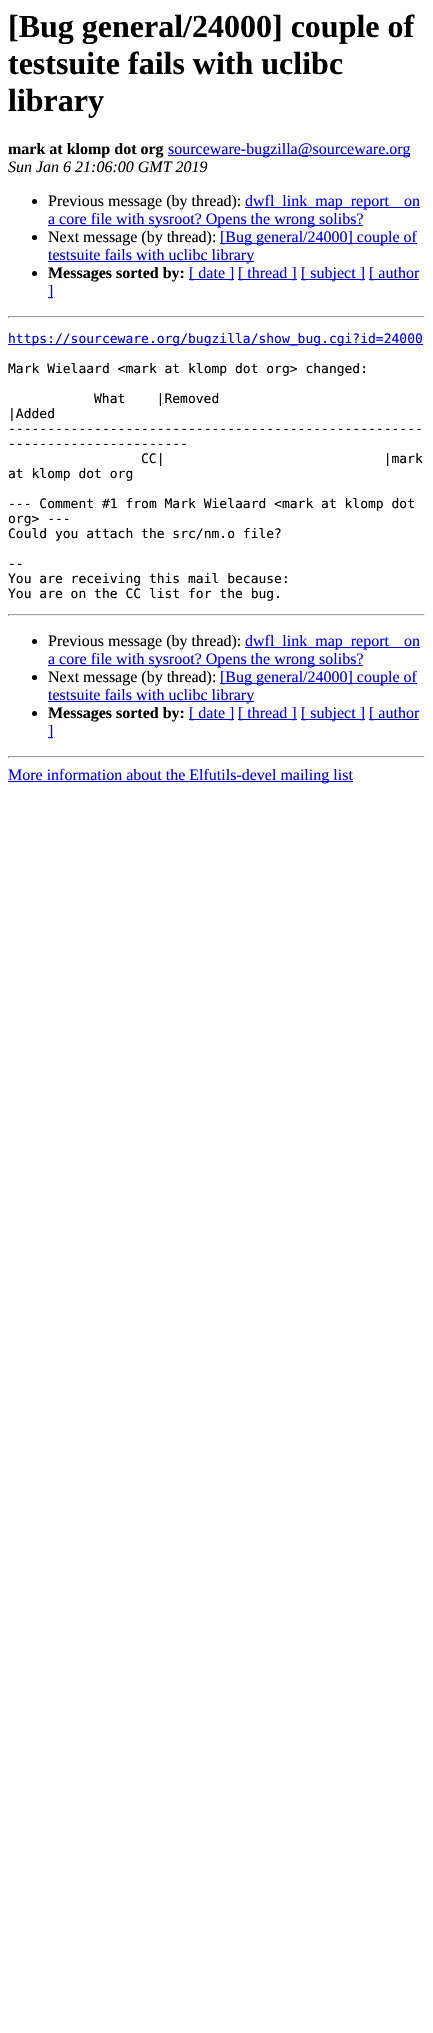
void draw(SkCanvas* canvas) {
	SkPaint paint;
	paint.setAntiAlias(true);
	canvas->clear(0xffffffff);
	SkFont f1(fontMgr->matchFamilyStyle("Liberation Serif", SkFontStyle::Bold()), 32);
	f1.setSubpixel(true);
	paint.setColor(0xff000000);
	canvas->drawString("[Bug general/24000] couple of", 8, 37, f1, paint);
	canvas->drawString("testsuite fails with uclibc", 8, 74, f1, paint);
	canvas->drawString("library", 8, 111, f1, paint);
	SkFont f2(fontMgr->matchFamilyStyle("Liberation Serif", SkFontStyle::Bold()), 16);
	f2.setSubpixel(true);
	canvas->drawString("mark at klomp dot org", 8, 154, f2, paint);
	paint.setColor(0xff0000ee);
	canvas->drawRect(SkRect::MakeXYWH(168, 155, 242, 1), paint);
	SkFont f3(fontMgr->matchFamilyStyle("Liberation Serif", SkFontStyle::Normal()), 16);
	f3.setSubpixel(true);
	canvas->drawString("sourceware-bugzilla@sourceware.org", 168, 154, f3, paint);
	SkFont f4(fontMgr->matchFamilyStyle("Liberation Serif", SkFontStyle::Italic()), 16);
	f4.setSubpixel(true);
	paint.setColor(0xff000000);
	canvas->drawString("Sun Jan 6 21:06:00 GMT 2019", 8, 172, f4, paint);
	canvas->drawCircle(34.5, 201.5, 2.5, paint);
	canvas->drawString("Previous message (by thread):", 48, 206, f3, paint);
	paint.setColor(0xff0000ee);
	canvas->drawRect(SkRect::MakeXYWH(245, 207, 175, 1), paint);
	canvas->drawString("dwfl_link_map_report", 245, 206, f3, paint);
	canvas->drawString("on", 404, 206, f3, paint);
	canvas->drawRect(SkRect::MakeXYWH(48, 225, 315, 1), paint);
	canvas->drawString("a core file with sysroot? Opens the wrong solibs?", 48, 224, f3, paint);
	paint.setColor(0xff000000);
	canvas->drawCircle(34.5, 237.5, 2.5, paint);
	canvas->drawString("Next message (by thread):", 48, 242, f3, paint);
	paint.setColor(0xff0000ee);
	canvas->drawRect(SkRect::MakeXYWH(220, 243, 197, 1), paint);
	canvas->drawString("[Bug general/24000] couple of", 220, 242, f3, paint);
	canvas->drawRect(SkRect::MakeXYWH(48, 261, 206, 1), paint);
	canvas->drawString("testsuite fails with uclibc library", 48, 260, f3, paint);
	paint.setColor(0xff000000);
	canvas->drawCircle(34.5, 273.5, 2.5, paint);
	canvas->drawString("Messages sorted by:", 48, 278, f2, paint);
	paint.setColor(0xff0000ee);
	canvas->drawRect(SkRect::MakeXYWH(189, 279, 45, 1), paint);
	canvas->drawString("[ date ]", 189, 278, f3, paint);
	canvas->drawRect(SkRect::MakeXYWH(238, 279, 59, 1), paint);
	canvas->drawString("[ thread ]", 238, 278, f3, paint);
	canvas->drawRect(SkRect::MakeXYWH(301, 279, 64, 1), paint);
	canvas->drawString("[ subject ]", 301, 278, f3, paint);
	canvas->drawRect(SkRect::MakeXYWH(369, 279, 50, 1), paint);
	canvas->drawString("[ author", 369, 278, f3, paint);
	canvas->drawRect(SkRect::MakeXYWH(48, 297, 5, 1), paint);
	canvas->drawString("]", 48, 296, f3, paint);
	paint.setColor(0xff9f9f9f);
	canvas->drawRect(SkRect::MakeXYWH(8, 316, 417, 1), paint);
	paint.setColor(0xffeeeeee);
	canvas->drawRect(SkRect::MakeXYWH(424, 316, 1, 2), paint);
	canvas->drawRect(SkRect::MakeXYWH(8, 317, 417, 1), paint);
	paint.setColor(0xff9f9f9f);
	canvas->drawRect(SkRect::MakeXYWH(8, 316, 1, 2), paint);
	paint.setColor(0xff0000ee);
	canvas->drawRect(SkRect::MakeXYWH(8, 344, 415, 1), paint);
	SkFont f5(fontMgr->matchFamilyStyle("DejaVu Sans Mono", SkFontStyle::Normal()), 13);
	f5.setSubpixel(true);
	canvas->drawString("https://sourceware.org/bugzilla/show_bug.cgi?id=24000", 8, 343, f5, paint);
	paint.setColor(0xff000000);
	canvas->drawString("Mark Wielaard <mark at klomp dot org> changed:", 8, 373, f5, paint);
	canvas->drawString("What    |Removed", 94, 403, f5, paint);
	canvas->drawString("|Added", 8, 418, f5, paint);
	canvas->drawString("-----------------------------------------------------", 8, 433, f5, paint);
	canvas->drawString("-----------------------", 8, 448, f5, paint);
	canvas->drawString("CC|                            |mark", 141, 463, f5, paint);
	canvas->drawString("at klomp dot org", 8, 478, f5, paint);
	canvas->drawString("--- Comment #1 from Mark Wielaard <mark at klomp dot", 8, 508, f5, paint);
	canvas->drawString("org> ---", 8, 523, f5, paint);
	canvas->drawString("Could you attach the src/nm.o file?", 8, 538, f5, paint);
	canvas->drawString("--", 8, 568, f5, paint);
	canvas->drawString("You are receiving this mail because:", 8, 583, f5, paint);
	canvas->drawString("You are on the CC list for the bug.", 8, 598, f5, paint);
	paint.setColor(0xff9f9f9f);
	canvas->drawRect(SkRect::MakeXYWH(8, 614, 417, 1), paint);
	paint.setColor(0xffeeeeee);
	canvas->drawRect(SkRect::MakeXYWH(424, 614, 1, 2), paint);
	canvas->drawRect(SkRect::MakeXYWH(8, 615, 417, 1), paint);
	paint.setColor(0xff9f9f9f);
	canvas->drawRect(SkRect::MakeXYWH(8, 614, 1, 2), paint);
	paint.setColor(0xff000000);
	canvas->drawCircle(34.5, 641.5, 2.5, paint);
	canvas->drawString("Previous message (by thread):", 48, 646, f3, paint);
	paint.setColor(0xff0000ee);
	canvas->drawRect(SkRect::MakeXYWH(245, 647, 175, 1), paint);
	canvas->drawString("dwfl_link_map_report", 245, 646, f3, paint);
	canvas->drawString("on", 404, 646, f3, paint);
	canvas->drawRect(SkRect::MakeXYWH(48, 665, 315, 1), paint);
	canvas->drawString("a core file with sysroot? Opens the wrong solibs?", 48, 664, f3, paint);
	paint.setColor(0xff000000);
	canvas->drawCircle(34.5, 677.5, 2.5, paint);
	canvas->drawString("Next message (by thread):", 48, 682, f3, paint);
	paint.setColor(0xff0000ee);
	canvas->drawRect(SkRect::MakeXYWH(220, 683, 197, 1), paint);
	canvas->drawString("[Bug general/24000] couple of", 220, 682, f3, paint);
	canvas->drawRect(SkRect::MakeXYWH(48, 701, 206, 1), paint);
	canvas->drawString("testsuite fails with uclibc library", 48, 700, f3, paint);
	paint.setColor(0xff000000);
	canvas->drawCircle(34.5, 713.5, 2.5, paint);
	canvas->drawString("Messages sorted by:", 48, 718, f2, paint);
	paint.setColor(0xff0000ee);
	canvas->drawRect(SkRect::MakeXYWH(189, 719, 45, 1), paint);
	canvas->drawString("[ date ]", 189, 718, f3, paint);
	canvas->drawRect(SkRect::MakeXYWH(238, 719, 59, 1), paint);
	canvas->drawString("[ thread ]", 238, 718, f3, paint);
	canvas->drawRect(SkRect::MakeXYWH(301, 719, 64, 1), paint);
	canvas->drawString("[ subject ]", 301, 718, f3, paint);
	canvas->drawRect(SkRect::MakeXYWH(369, 719, 50, 1), paint);
	canvas->drawString("[ author", 369, 718, f3, paint);
	canvas->drawRect(SkRect::MakeXYWH(48, 737, 5, 1), paint);
	canvas->drawString("]", 48, 736, f3, paint);
	paint.setColor(0xff9f9f9f);
	canvas->drawRect(SkRect::MakeXYWH(8, 756, 417, 1), paint);
	paint.setColor(0xffeeeeee);
	canvas->drawRect(SkRect::MakeXYWH(424, 756, 1, 2), paint);
	canvas->drawRect(SkRect::MakeXYWH(8, 757, 417, 1), paint);
	paint.setColor(0xff9f9f9f);
	canvas->drawRect(SkRect::MakeXYWH(8, 756, 1, 2), paint);
	paint.setColor(0xff0000ee);
	canvas->drawRect(SkRect::MakeXYWH(8, 781, 345, 1), paint);
	canvas->drawString("More information about the Elfutils-devel mailing list", 8, 780, f3, paint);
}
